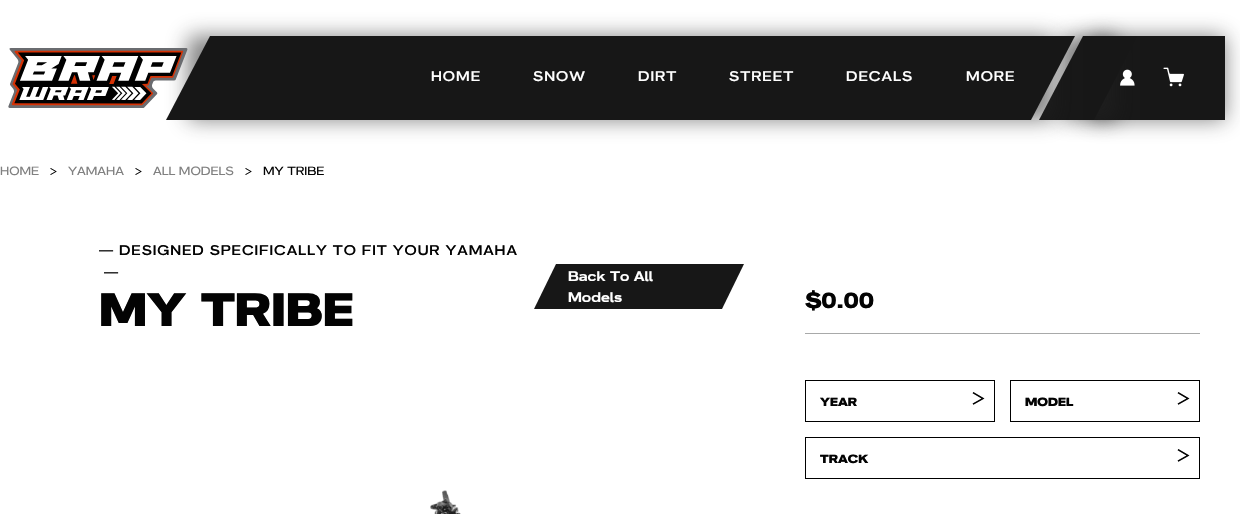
void draw(SkCanvas* canvas) {
	SkPaint paint;
	paint.setAntiAlias(true);
	auto spacedText = [&](const char* s, float x, float y, const SkFont& font, const SkPaint& ink, float letter, float word) {
		std::vector<SkGlyphID> glyphs(font.countText(s, strlen(s), SkTextEncoding::kUTF8));
		std::vector<float> xs(glyphs.size());
		font.textToGlyphs(s, strlen(s), SkTextEncoding::kUTF8, glyphs);
		font.getXPos(glyphs, xs, x);
		float extra = 0;
		for (size_t i = 0; i < glyphs.size(); i++) {
			xs[i] += extra;
			extra += letter + word * (glyphs[i] == font.unicharToGlyph(' '));
		}
		canvas->drawTextBlob(SkTextBlob::MakeFromPosHGlyphs(glyphs, xs, y, font), 0, 0, ink);
	};
	auto svgPath = [&](const char* data, bool evenOdd = false) {
		SkPath result = *SkParsePath::FromSVGString(data);
		if (evenOdd) result.setFillType(SkPathFillType::kEvenOdd);
		return result;
	};
	canvas->clear(0xffffffff);
	paint.setColor(0x8f222222);
	paint.setMaskFilter(SkMaskFilter::MakeBlur(kNormal_SkBlurStyle, 10));
	canvas->drawRect(SkRect::MakeXYWH(1089, 36, 136, 84), paint);
	paint.setMaskFilter(nullptr);
	paint.setColor(0xff171717);
	canvas->drawRect(SkRect::MakeXYWH(1094, 36, 131, 84), paint);
	paint.setColor(0x8f222222);
	paint.setMaskFilter(SkMaskFilter::MakeBlur(kNormal_SkBlurStyle, 10));
	canvas->drawRect(SkRect::MakeXYWH(1061, 36, 55, 84), paint);
	paint.setMaskFilter(nullptr);
	paint.setColor(0xff171717);
	canvas->drawPath(svgPath("M1083 36H1138L1094 120H1039Z"), paint);
	paint.setColor(0x8f222222);
	paint.setMaskFilter(SkMaskFilter::MakeBlur(kNormal_SkBlurStyle, 10));
	canvas->drawRect(SkRect::MakeXYWH(188, 36, 865, 84), paint);
	paint.setMaskFilter(nullptr);
	paint.setColor(0xff171717);
	canvas->drawPath(svgPath("M210 36H1075L1031 120H166Z"), paint);
	canvas->drawImageRect(SkImages::DeferredFromEncodedData(SkData::MakeFromFileName("img1.png")), SkRect::MakeXYWH(8, 48, 180, 60), SkSamplingOptions());
	SkFont f1(fontMgr->matchFamilyStyle("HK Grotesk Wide", SkFontStyle(500, SkFontStyle::kNormal_Width, SkFontStyle::kUpright_Slant)), 14);
	f1.setSubpixel(true);
	paint.setColor(0xffffffff);
	spacedText("HOME", 431, 81, f1, paint, 1, 0);
	spacedText("SNOW", 533, 81, f1, paint, 1, 0);
	spacedText("DIRT", 638, 81, f1, paint, 1, 0);
	spacedText("STREET", 729, 81, f1, paint, 1, 0);
	spacedText("DECALS", 846, 81, f1, paint, 1, 0);
	spacedText("MORE", 966, 81, f1, paint, 1, 0);
	canvas->drawImageRect(SkImages::DeferredFromEncodedData(SkData::MakeFromFileName("img2.png")), SkRect::MakeXYWH(1163, 67, 21, 20), SkSamplingOptions());
	canvas->drawImageRect(SkImages::DeferredFromEncodedData(SkData::MakeFromFileName("img3.png")), SkRect::MakeXYWH(1120, 69, 15, 17), SkSamplingOptions());
	SkFont f2(fontMgr->matchFamilyStyle("HK Grotesk Wide", SkFontStyle::Normal()), 12);
	f2.setSubpixel(true);
	paint.setColor(0xff808080);
	canvas->drawString("HOME", 0, 175, f2, paint);
	paint.setColor(0xff030303);
	canvas->drawString(">", 50, 175, f2, paint);
	paint.setColor(0xff808080);
	canvas->drawString("YAMAHA", 68, 175, f2, paint);
	paint.setColor(0xff030303);
	canvas->drawString(">", 135, 175, f2, paint);
	paint.setColor(0xff808080);
	canvas->drawString("ALL MODELS", 153, 175, f2, paint);
	paint.setColor(0xff030303);
	canvas->drawString(">", 245, 175, f2, paint);
	canvas->drawString("MY TRIBE", 263, 175, f2, paint);
	spacedText("— DESIGNED SPECIFICALLY TO FIT YOUR YAMAHA", 99, 255, f1, paint, 0.9, 0);
	spacedText("—", 104, 277, f1, paint, 0.9, 0);
	SkFont f3(fontMgr->matchFamilyStyle("HK Grotesk Wide", SkFontStyle(800, SkFontStyle::kNormal_Width, SkFontStyle::kUpright_Slant)), 47);
	f3.setSubpixel(true);
	canvas->drawString("MY TRIBE", 99, 326, f3, paint);
	paint.setColor(0xff171717);
	canvas->drawPath(svgPath("M556 264L534 309H722L744 264Z"), paint);
	SkFont f4(fontMgr->matchFamilyStyle("HK Grotesk Wide", SkFontStyle(600, SkFontStyle::kNormal_Width, SkFontStyle::kUpright_Slant)), 14);
	f4.setSubpixel(true);
	paint.setColor(0xffffffff);
	canvas->drawString("Back To All", 568, 281, f4, paint);
	canvas->drawString("Models", 568, 302, f4, paint);
	canvas->drawImageRect(SkImages::DeferredFromEncodedData(SkData::MakeFromFileName("img4.png")), SkRect::MakeXYWH(430, 490, 31, 24), SkSamplingOptions());
	paint.setColor(0xffa8a9a9);
	canvas->drawRect(SkRect::MakeXYWH(805, 333, 395, 1), paint);
	SkFont f5(fontMgr->matchFamilyStyle("HK Grotesk Wide", SkFontStyle(800, SkFontStyle::kNormal_Width, SkFontStyle::kUpright_Slant)), 22);
	f5.setSubpixel(true);
	paint.setColor(0xff030303);
	canvas->drawString("$0.00", 805, 308, f5, paint);
	paint.setStroke(true);
	paint.setStrokeWidth(1);
	paint.setColor(0xff000000);
	canvas->drawRect(SkRect::MakeXYWH(805.5, 380.5, 189, 41), paint);
	SkFont f6(fontMgr->matchFamilyStyle("HK Grotesk Wide", SkFontStyle(800, SkFontStyle::kNormal_Width, SkFontStyle::kUpright_Slant)), 12);
	f6.setSubpixel(true);
	paint.setStroke(false);
	paint.setColor(0xff030303);
	canvas->drawString("YEAR", 820, 406, f6, paint);
	SkFont f7(fontMgr->matchFamilyStyle("HK Grotesk Wide", SkFontStyle::Normal()), 22);
	f7.setSubpixel(true);
	canvas->drawString(">", 972, 405, f7, paint);
	paint.setStroke(true);
	paint.setColor(0xff000000);
	canvas->drawRect(SkRect::MakeXYWH(1010.5, 380.5, 189, 41), paint);
	paint.setStroke(false);
	paint.setColor(0xff030303);
	canvas->drawString("MODEL", 1025, 406, f6, paint);
	canvas->drawString(">", 1177, 405, f7, paint);
	paint.setStroke(true);
	paint.setColor(0xff000000);
	canvas->drawRect(SkRect::MakeXYWH(805.5, 437.5, 394, 41), paint);
	paint.setStroke(false);
	paint.setColor(0xff030303);
	canvas->drawString("TRACK", 820, 463, f6, paint);
	canvas->drawString(">", 1177, 462, f7, paint);
}
